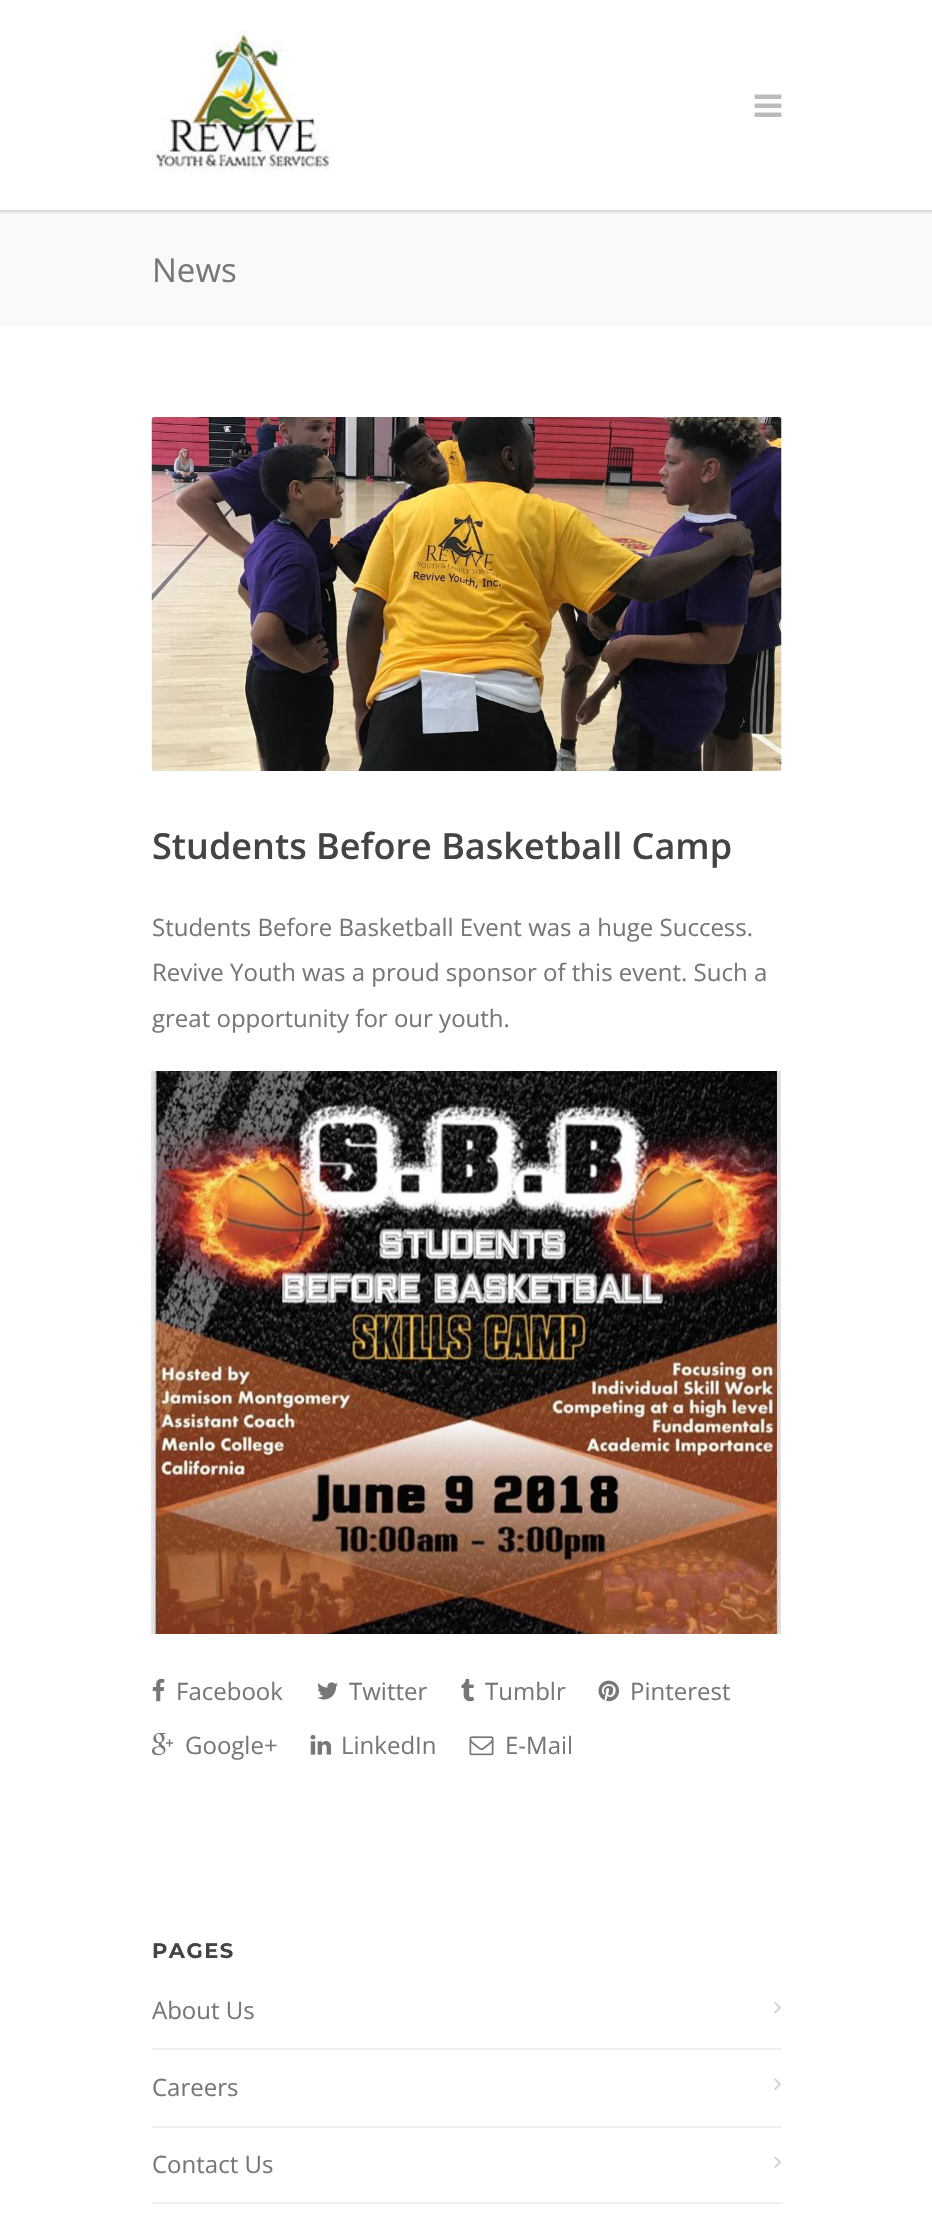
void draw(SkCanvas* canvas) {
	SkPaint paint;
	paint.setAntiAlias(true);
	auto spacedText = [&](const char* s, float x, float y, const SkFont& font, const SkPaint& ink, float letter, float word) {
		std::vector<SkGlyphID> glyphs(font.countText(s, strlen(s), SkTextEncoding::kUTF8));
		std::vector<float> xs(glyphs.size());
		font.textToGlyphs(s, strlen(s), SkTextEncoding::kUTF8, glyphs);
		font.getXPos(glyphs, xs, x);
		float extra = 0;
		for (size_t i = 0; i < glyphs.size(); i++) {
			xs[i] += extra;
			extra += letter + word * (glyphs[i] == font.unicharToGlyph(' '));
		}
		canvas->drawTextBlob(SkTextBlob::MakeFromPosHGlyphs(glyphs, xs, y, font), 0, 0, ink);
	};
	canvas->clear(0xffffffff);
	paint.setColor(0xfff9f9f9);
	canvas->drawRect(SkRect::MakeXYWH(0, 210, 932, 117), paint);
	canvas->save();
	canvas->clipRect(SkRect::MakeXYWH(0, 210, 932, 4));
	paint.setColor(0x29000000);
	paint.setMaskFilter(SkMaskFilter::MakeBlur(kNormal_SkBlurStyle, 1.5));
	canvas->drawRect(SkRect::MakeXYWH(-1, -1, 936, 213), paint);
	paint.setMaskFilter(nullptr);
	canvas->restore();
	canvas->drawImageRect(SkImages::DeferredFromEncodedData(SkData::MakeFromFileName("img1.png")), SkRect::MakeXYWH(152, 30, 179, 143), SkSamplingOptions());
	canvas->drawImageRect(SkImages::DeferredFromEncodedData(SkData::MakeFromFileName("img2.png")), SkRect::MakeXYWH(754, 94, 28, 23), SkSamplingOptions());
	SkFont f1(fontMgr->matchFamilyStyle("Open Sans", SkFontStyle::Normal()), 33);
	f1.setSubpixel(true);
	paint.setColor(0xff777777);
	canvas->drawString("News", 152, 282, f1, paint);
	canvas->drawImageRect(SkImages::DeferredFromEncodedData(SkData::MakeFromFileName("img3.png")), SkRect::MakeXYWH(151, 417, 631, 354), SkSamplingOptions());
	SkFont f2(fontMgr->matchFamilyStyle("Open Sans", SkFontStyle(600, SkFontStyle::kNormal_Width, SkFontStyle::kUpright_Slant)), 36);
	f2.setSubpixel(true);
	paint.setColor(0xff444444);
	canvas->drawString("Students Before Basketball Camp", 152, 859, f2, paint);
	SkFont f3(fontMgr->matchFamilyStyle("Open Sans", SkFontStyle::Normal()), 24);
	f3.setSubpixel(true);
	paint.setColor(0xff777777);
	canvas->drawString("Students Before Basketball Event was a huge Success.", 152, 936, f3, paint);
	canvas->drawString("Revive Youth was a proud sponsor of this event. Such a", 152, 981, f3, paint);
	canvas->drawString("great opportunity for our youth.", 152, 1027, f3, paint);
	canvas->drawImageRect(SkImages::DeferredFromEncodedData(SkData::MakeFromFileName("img4.png")), SkRect::MakeXYWH(151, 1071, 630, 563), SkSamplingOptions());
	canvas->drawImageRect(SkImages::DeferredFromEncodedData(SkData::MakeFromFileName("img5.png")), SkRect::MakeXYWH(152, 1678, 13, 24), SkSamplingOptions());
	canvas->drawString("Facebook", 176, 1700, f3, paint);
	canvas->drawImageRect(SkImages::DeferredFromEncodedData(SkData::MakeFromFileName("img6.png")), SkRect::MakeXYWH(317, 1682, 21, 18), SkSamplingOptions());
	canvas->drawString("Twitter", 349, 1700, f3, paint);
	canvas->drawImageRect(SkImages::DeferredFromEncodedData(SkData::MakeFromFileName("img7.png")), SkRect::MakeXYWH(461, 1678, 14, 24), SkSamplingOptions());
	canvas->drawString("Tumblr", 485, 1700, f3, paint);
	canvas->drawImageRect(SkImages::DeferredFromEncodedData(SkData::MakeFromFileName("img8.png")), SkRect::MakeXYWH(598, 1680, 22, 22), SkSamplingOptions());
	canvas->drawString("Pinterest", 630, 1700, f3, paint);
	canvas->drawImageRect(SkImages::DeferredFromEncodedData(SkData::MakeFromFileName("img9.png")), SkRect::MakeXYWH(152, 1732, 22, 24), SkSamplingOptions());
	canvas->drawString("Google+", 185, 1754, f3, paint);
	canvas->drawImageRect(SkImages::DeferredFromEncodedData(SkData::MakeFromFileName("img10.png")), SkRect::MakeXYWH(310, 1735, 22, 20), SkSamplingOptions());
	canvas->drawString("LinkedIn", 341, 1754, f3, paint);
	canvas->drawImageRect(SkImages::DeferredFromEncodedData(SkData::MakeFromFileName("img11.png")), SkRect::MakeXYWH(469, 1736, 25, 20), SkSamplingOptions());
	canvas->drawString("E-Mail", 505, 1754, f3, paint);
	SkFont f4(fontMgr->matchFamilyStyle("Montserrat", SkFontStyle(100, SkFontStyle::kNormal_Width, SkFontStyle::kUpright_Slant)), 21);
	f4.setSubpixel(true);
	paint.setColor(0xff444444);
	spacedText("PAGES", 152, 1958, f4, paint, 1.5, 0);
	paint.setColor(0xffefefef);
	canvas->drawRect(SkRect::MakeXYWH(152, 2048, 630, 2), paint);
	paint.setColor(0xff777777);
	canvas->drawString("About Us", 152, 2019, f3, paint);
	canvas->drawImageRect(SkImages::DeferredFromEncodedData(SkData::MakeFromFileName("img12.png")), SkRect::MakeXYWH(774, 2002, 7, 12), SkSamplingOptions());
	paint.setColor(0xffefefef);
	canvas->drawRect(SkRect::MakeXYWH(152, 2126, 630, 2), paint);
	paint.setColor(0xff777777);
	canvas->drawString("Careers", 152, 2096, f3, paint);
	canvas->drawImageRect(SkImages::DeferredFromEncodedData(SkData::MakeFromFileName("img13.png")), SkRect::MakeXYWH(774, 2078, 7, 12), SkSamplingOptions());
	paint.setColor(0xffefefef);
	canvas->drawRect(SkRect::MakeXYWH(152, 2202, 630, 2), paint);
	paint.setColor(0xff777777);
	canvas->drawString("Contact Us", 152, 2173, f3, paint);
	canvas->drawImageRect(SkImages::DeferredFromEncodedData(SkData::MakeFromFileName("img13.png")), SkRect::MakeXYWH(774, 2156, 7, 12), SkSamplingOptions());
}
